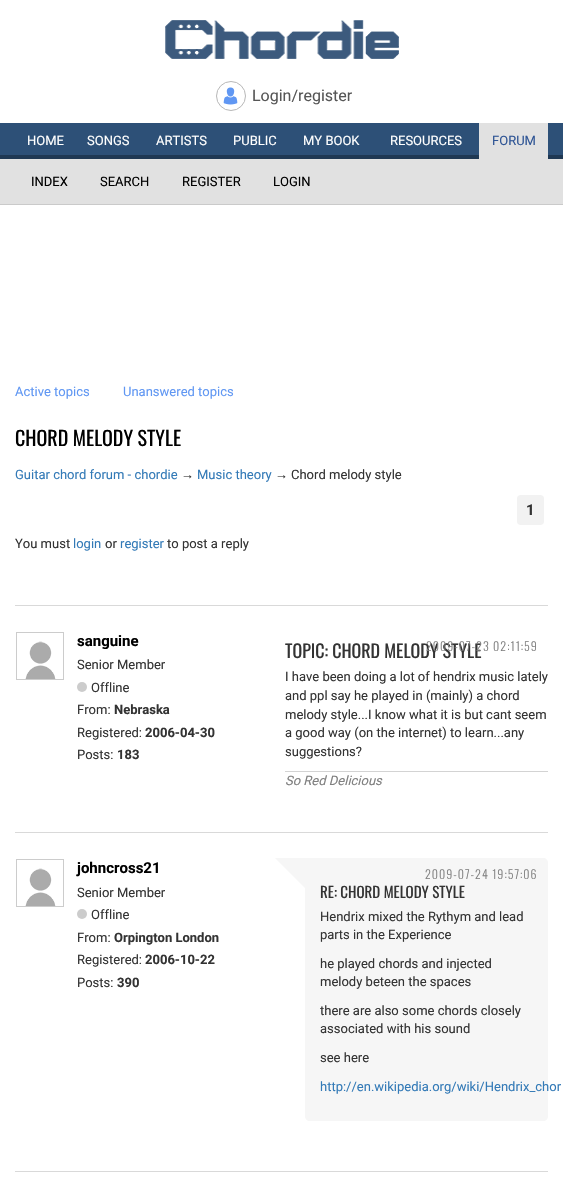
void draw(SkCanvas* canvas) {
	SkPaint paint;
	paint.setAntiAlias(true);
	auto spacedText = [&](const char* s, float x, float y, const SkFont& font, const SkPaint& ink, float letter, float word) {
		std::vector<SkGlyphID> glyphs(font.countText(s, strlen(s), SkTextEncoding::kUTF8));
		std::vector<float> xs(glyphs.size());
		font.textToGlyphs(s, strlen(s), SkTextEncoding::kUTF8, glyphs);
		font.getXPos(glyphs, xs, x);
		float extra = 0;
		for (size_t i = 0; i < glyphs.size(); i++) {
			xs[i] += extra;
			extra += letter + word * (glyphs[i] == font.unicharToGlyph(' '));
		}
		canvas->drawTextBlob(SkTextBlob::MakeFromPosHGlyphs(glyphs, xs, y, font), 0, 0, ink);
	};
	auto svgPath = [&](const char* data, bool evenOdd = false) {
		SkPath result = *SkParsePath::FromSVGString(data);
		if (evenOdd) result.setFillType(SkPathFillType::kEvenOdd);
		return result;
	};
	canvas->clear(0xffffffff);
	canvas->drawImageRect(SkImages::DeferredFromEncodedData(SkData::MakeFromFileName("img1.png")), SkRect::MakeXYWH(165, 20, 234, 39), SkSamplingOptions());
	canvas->drawImageRect(SkImages::DeferredFromEncodedData(SkData::MakeFromFileName("img2.png")), SkRect::MakeXYWH(223, 87, 15, 18), SkSamplingOptions());
	paint.setStroke(true);
	paint.setStrokeWidth(1);
	paint.setColor(0xffb7b7b7);
	canvas->drawCircle(231, 96, 14.5, paint);
	SkFont f1(fontMgr->matchFamilyStyle("Roboto", SkFontStyle::Normal()), 16);
	f1.setSubpixel(true);
	paint.setStroke(false);
	paint.setColor(0xff565656);
	canvas->drawString("Login/register", 252, 101, f1, paint);
	paint.setColor(0xff2d5077);
	canvas->drawRect(SkRect::MakeXYWH(0, 123, 563, 32), paint);
	paint.setColor(0xff1f3853);
	canvas->drawRect(SkRect::MakeXYWH(0, 155, 563, 4), paint);
	SkFont f2(fontMgr->matchFamilyStyle("Roboto", SkFontStyle::Normal()), 13);
	f2.setSubpixel(true);
	paint.setColor(0xffffffff);
	canvas->drawString("HOME", 27, 145, f2, paint);
	canvas->drawString("SONGS", 87, 145, f2, paint);
	canvas->drawString("ARTISTS", 156, 145, f2, paint);
	canvas->drawString("PUBLIC", 233, 145, f2, paint);
	canvas->drawString("MY BOOK", 303, 145, f2, paint);
	canvas->drawString("RESOURCES", 390, 145, f2, paint);
	paint.setColor(0xffe1e1e1);
	canvas->drawRect(SkRect::MakeXYWH(479, 123, 69, 36), paint);
	paint.setColor(0xff2f5595);
	canvas->drawString("FORUM", 492, 145, f2, paint);
	paint.setColor(0xffe1e1e1);
	canvas->drawRect(SkRect::MakeXYWH(0, 159, 563, 45), paint);
	paint.setColor(0xffcacaca);
	canvas->drawRect(SkRect::MakeXYWH(0, 204, 563, 1), paint);
	paint.setColor(0xff000000);
	canvas->drawString("INDEX", 31, 186, f2, paint);
	canvas->drawString("SEARCH", 100, 186, f2, paint);
	canvas->drawString("REGISTER", 182, 186, f2, paint);
	canvas->drawString("LOGIN", 273, 186, f2, paint);
	paint.setColor(0xff6097f3);
	canvas->drawString("Active topics", 15, 396, f2, paint);
	canvas->drawString("Unanswered topics", 123, 396, f2, paint);
	SkFont f3(fontMgr->matchFamilyStyle("Oswald", SkFontStyle::Normal()), 20);
	f3.setSubpixel(true);
	paint.setColor(0xff000000);
	canvas->drawString("CHORD MELODY STYLE", 15, 446, f3, paint);
	paint.setColor(0xff337ab7);
	canvas->drawString("Guitar chord forum - chordie", 15, 479, f2, paint);
	SkFont f4(fontMgr->matchFamilyStyle("Liberation Sans", SkFontStyle::Normal()), 13);
	f4.setSubpixel(true);
	paint.setColor(0xff333333);
	canvas->drawString("→", 181, 479, f4, paint);
	paint.setColor(0xff337ab7);
	canvas->drawString("Music theory", 197, 479, f2, paint);
	paint.setColor(0xff333333);
	canvas->drawString("→", 275, 479, f4, paint);
	canvas->drawString("Chord melody style", 291, 479, f2, paint);
	paint.setColor(0xfff2f2f2);
	canvas->drawRoundRect(SkRect::MakeXYWH(517, 495, 27, 30), 4, 4, paint);
	SkFont f5(fontMgr->matchFamilyStyle("Roboto", SkFontStyle::Bold()), 15);
	f5.setSubpixel(true);
	paint.setColor(0xff333333);
	canvas->drawString("1", 526, 515, f5, paint);
	canvas->drawString("You must", 15, 548, f2, paint);
	paint.setColor(0xff337ab7);
	canvas->drawString("login", 73, 548, f2, paint);
	paint.setColor(0xff333333);
	canvas->drawString("or", 105, 548, f2, paint);
	paint.setColor(0xff337ab7);
	canvas->drawString("register", 120, 548, f2, paint);
	paint.setColor(0xff333333);
	canvas->drawString("to post a reply", 167, 548, f2, paint);
	canvas->drawImageRect(SkImages::DeferredFromEncodedData(SkData::MakeFromFileName("img3.png")), SkRect::MakeXYWH(25, 641, 31, 38), SkSamplingOptions());
	paint.setStroke(true);
	paint.setColor(0xffcccccc);
	canvas->drawRect(SkRect::MakeXYWH(16.5, 632.5, 47, 47), paint);
	paint.setStroke(false);
	paint.setColor(0xff000000);
	canvas->drawString("sanguine", 77, 646, f5, paint);
	paint.setColor(0xff333333);
	canvas->drawString("Senior Member", 77, 669, f2, paint);
	paint.setColor(0xffcccccc);
	canvas->drawCircle(82, 687, 5, paint);
	paint.setColor(0xff333333);
	canvas->drawString("Offline", 91, 692, f2, paint);
	canvas->drawString("From:", 77, 714, f2, paint);
	SkFont f6(fontMgr->matchFamilyStyle("Roboto", SkFontStyle::Bold()), 13);
	f6.setSubpixel(true);
	canvas->drawString("Nebraska", 114, 714, f6, paint);
	canvas->drawString("Registered:", 77, 737, f2, paint);
	canvas->drawString("2006-04-30", 145, 737, f6, paint);
	canvas->drawString("Posts:", 77, 759, f2, paint);
	canvas->drawString("183", 117, 759, f6, paint);
	SkFont f7(fontMgr->matchFamilyStyle("Oswald", SkFontStyle::Normal()), 18);
	f7.setSubpixel(true);
	canvas->drawString("TOPIC: CHORD MELODY STYLE", 285, 658, f7, paint);
	canvas->drawString("I have been doing a lot of hendrix music lately", 285, 681, f2, paint);
	canvas->drawString("and ppl say he played in (mainly) a chord", 285, 700, f2, paint);
	canvas->drawString("melody style...I know what it is but cant seem", 285, 719, f2, paint);
	canvas->drawString("a good way (on the internet) to learn...any", 285, 737, f2, paint);
	canvas->drawString("suggestions?", 285, 756, f2, paint);
	paint.setColor(0xffd3d3d3);
	canvas->drawRect(SkRect::MakeXYWH(285, 771, 263, 1), paint);
	SkFont f8(fontMgr->matchFamilyStyle("Roboto", SkFontStyle::Italic()), 13);
	f8.setSubpixel(true);
	paint.setColor(0xff808080);
	canvas->drawString("So Red Delicious", 285, 785, f8, paint);
	paint.setColor(0xffd9d9d9);
	canvas->drawRect(SkRect::MakeXYWH(15, 605, 533, 1), paint);
	SkFont f9(fontMgr->matchFamilyStyle("Oswald", SkFontStyle(300, SkFontStyle::kNormal_Width, SkFontStyle::kUpright_Slant)), 12);
	f9.setSubpixel(true);
	paint.setColor(0xff808080);
	spacedText("2009-07-23 02:11:59", 426, 651, f9, paint, 1, 0);
	canvas->drawImageRect(SkImages::DeferredFromEncodedData(SkData::MakeFromFileName("img3.png")), SkRect::MakeXYWH(25, 868, 31, 38), SkSamplingOptions());
	paint.setStroke(true);
	paint.setColor(0xffcccccc);
	canvas->drawRect(SkRect::MakeXYWH(16.5, 859.5, 47, 47), paint);
	paint.setStroke(false);
	paint.setColor(0xff000000);
	canvas->drawString("johncross21", 77, 873, f5, paint);
	paint.setColor(0xff333333);
	canvas->drawString("Senior Member", 77, 897, f2, paint);
	paint.setColor(0xffcccccc);
	canvas->drawCircle(82, 914, 5, paint);
	paint.setColor(0xff333333);
	canvas->drawString("Offline", 91, 919, f2, paint);
	canvas->drawString("From:", 77, 942, f2, paint);
	canvas->drawString("Orpington London", 114, 942, f6, paint);
	canvas->drawString("Registered:", 77, 964, f2, paint);
	canvas->drawString("2006-10-22", 145, 964, f6, paint);
	canvas->drawString("Posts:", 77, 987, f2, paint);
	canvas->drawString("390", 117, 987, f6, paint);
	paint.setColor(0xfff6f6f6);
	canvas->drawPath(svgPath("M305 858H543C546 858 548 860 548 863V1116C548 1119 546 1121 543 1121H310C307 1121 305 1119 305 1116Z"), paint);
	canvas->drawPath(svgPath("M305 858V888L275 858Z"), paint);
	SkFont f10(fontMgr->matchFamilyStyle("Oswald", SkFontStyle::Normal()), 15);
	f10.setSubpixel(true);
	paint.setColor(0xff333333);
	canvas->drawString("RE: CHORD MELODY STYLE", 320, 898, f10, paint);
	canvas->drawString("Hendrix mixed the Rythym and lead", 320, 921, f2, paint);
	canvas->drawString("parts in the Experience", 320, 939, f2, paint);
	canvas->drawString("he played chords and injected", 320, 968, f2, paint);
	canvas->drawString("melody beteen the spaces", 320, 986, f2, paint);
	canvas->drawString("there are also some chords closely", 320, 1015, f2, paint);
	canvas->drawString("associated with his sound", 320, 1033, f2, paint);
	canvas->drawString("see here", 320, 1062, f2, paint);
	paint.setColor(0xff337ab7);
	canvas->drawString("http://en.wikipedia.org/wiki/Hendrix_chor", 320, 1091, f2, paint);
	paint.setColor(0xffd9d9d9);
	canvas->drawRect(SkRect::MakeXYWH(15, 832, 533, 1), paint);
	paint.setColor(0xff808080);
	spacedText("2009-07-24 19:57:06", 425, 879, f9, paint, 1, 0);
	paint.setColor(0xffd9d9d9);
	canvas->drawRect(SkRect::MakeXYWH(15, 1171, 533, 1), paint);
}
